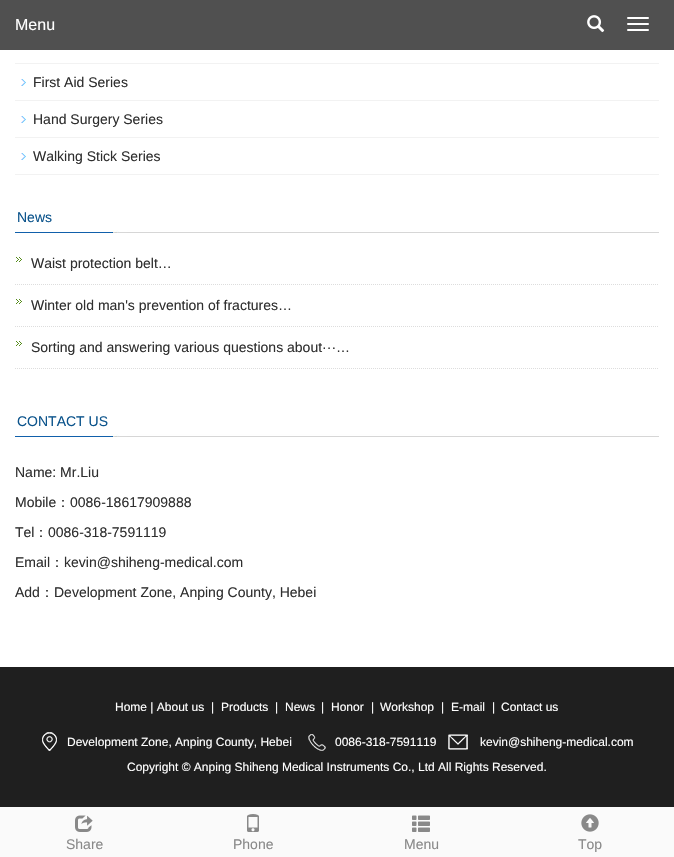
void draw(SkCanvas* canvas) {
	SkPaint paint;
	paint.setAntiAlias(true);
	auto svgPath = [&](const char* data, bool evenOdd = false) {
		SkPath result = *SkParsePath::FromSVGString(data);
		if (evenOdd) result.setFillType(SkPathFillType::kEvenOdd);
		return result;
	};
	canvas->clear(0xffffffff);
	paint.setColor(0xff505050);
	canvas->drawRect(SkRect::MakeXYWH(0, 0, 674, 50), paint);
	SkFont f1(fontMgr->matchFamilyStyle("Liberation Sans", SkFontStyle::Normal()), 16);
	f1.setSubpixel(true);
	paint.setColor(0xffffffff);
	canvas->drawString("Menu", 15, 30, f1, paint);
	canvas->drawImageRect(SkImages::DeferredFromEncodedData(SkData::MakeFromFileName("img1.png")), SkRect::MakeXYWH(587, 15, 18, 18), SkSamplingOptions());
	canvas->drawRoundRect(SkRect::MakeXYWH(627, 17, 22, 2), 1, 1, paint);
	canvas->drawRoundRect(SkRect::MakeXYWH(627, 23, 22, 2), 1, 1, paint);
	canvas->drawRoundRect(SkRect::MakeXYWH(627, 29, 22, 2), 1, 1, paint);
	paint.setColor(0xfff2f2f2);
	canvas->drawRect(SkRect::MakeXYWH(15, 63, 644, 1), paint);
	canvas->drawImageRect(SkImages::DeferredFromEncodedData(SkData::MakeFromFileName("img2.png")), SkRect::MakeXYWH(21, 79, 5, 7), SkSamplingOptions());
	canvas->drawRect(SkRect::MakeXYWH(15, 100, 644, 1), paint);
	SkFont f2(fontMgr->matchFamilyStyle("Liberation Sans", SkFontStyle::Normal()), 14);
	f2.setSubpixel(true);
	paint.setColor(0xff2f2f2f);
	canvas->drawString("First Aid Series", 33, 87, f2, paint);
	canvas->drawImageRect(SkImages::DeferredFromEncodedData(SkData::MakeFromFileName("img2.png")), SkRect::MakeXYWH(21, 116, 5, 7), SkSamplingOptions());
	paint.setColor(0xfff2f2f2);
	canvas->drawRect(SkRect::MakeXYWH(15, 137, 644, 1), paint);
	paint.setColor(0xff2f2f2f);
	canvas->drawString("Hand Surgery Series", 33, 124, f2, paint);
	canvas->drawImageRect(SkImages::DeferredFromEncodedData(SkData::MakeFromFileName("img2.png")), SkRect::MakeXYWH(21, 153, 5, 7), SkSamplingOptions());
	paint.setColor(0xfff2f2f2);
	canvas->drawRect(SkRect::MakeXYWH(15, 174, 644, 1), paint);
	paint.setColor(0xff2f2f2f);
	canvas->drawString("Walking Stick Series", 33, 161, f2, paint);
	canvas->drawImageRect(SkImages::DeferredFromEncodedData(SkData::MakeFromFileName("img3.png")), SkRect::MakeXYWH(15, 230, 644, 3), SkSamplingOptions());
	paint.setColor(0xff0c548c);
	canvas->drawString("News", 17, 222, f2, paint);
	canvas->drawImageRect(SkImages::DeferredFromEncodedData(SkData::MakeFromFileName("img4.png")), SkRect::MakeXYWH(16, 257, 6, 5), SkSamplingOptions());
	paint.setStroke(true);
	paint.setStrokeWidth(1);
	paint.setColor(0xffdddddd);
	paint.setPathEffect(SkDashPathEffect::Make({{1, 1}}, 0));
	canvas->drawPath(svgPath("M15 284.5H659"), paint);
	paint.setPathEffect(nullptr);
	paint.setStroke(false);
	paint.setColor(0xff2f2f2f);
	canvas->drawString("Waist protection belt…", 31, 268, f2, paint);
	canvas->drawImageRect(SkImages::DeferredFromEncodedData(SkData::MakeFromFileName("img4.png")), SkRect::MakeXYWH(16, 299, 6, 5), SkSamplingOptions());
	paint.setStroke(true);
	paint.setColor(0xffdddddd);
	paint.setPathEffect(SkDashPathEffect::Make({{1, 1}}, 0));
	canvas->drawPath(svgPath("M15 326.5H659"), paint);
	paint.setPathEffect(nullptr);
	paint.setStroke(false);
	paint.setColor(0xff2f2f2f);
	canvas->drawString("Winter old man's prevention of fractures…", 31, 310, f2, paint);
	canvas->drawImageRect(SkImages::DeferredFromEncodedData(SkData::MakeFromFileName("img4.png")), SkRect::MakeXYWH(16, 341, 6, 5), SkSamplingOptions());
	paint.setStroke(true);
	paint.setColor(0xffdddddd);
	paint.setPathEffect(SkDashPathEffect::Make({{1, 1}}, 0));
	canvas->drawPath(svgPath("M15 368.5H659"), paint);
	paint.setPathEffect(nullptr);
	paint.setStroke(false);
	paint.setColor(0xff2f2f2f);
	canvas->drawString("Sorting and answering various questions about···…", 31, 352, f2, paint);
	canvas->drawImageRect(SkImages::DeferredFromEncodedData(SkData::MakeFromFileName("img3.png")), SkRect::MakeXYWH(15, 434, 644, 3), SkSamplingOptions());
	paint.setColor(0xff0c548c);
	canvas->drawString("CONTACT US", 17, 426, f2, paint);
	paint.setColor(0xff2f2f2f);
	canvas->drawString("Name: Mr.Liu", 15, 477, f2, paint);
	canvas->drawString("Mobile", 15, 507, f2, paint);
	SkFont f3(fontMgr->matchFamilyStyle("WenQuanYi Zen Hei", SkFontStyle(500, SkFontStyle::kNormal_Width, SkFontStyle::kUpright_Slant)), 14);
	f3.setSubpixel(true);
	canvas->drawString("：", 56, 507, f3, paint);
	canvas->drawString("0086-18617909888", 70, 507, f2, paint);
	canvas->drawString("Tel", 15, 537, f2, paint);
	canvas->drawString("：", 34, 537, f3, paint);
	canvas->drawString("0086-318-7591119", 48, 537, f2, paint);
	canvas->drawString("Email", 15, 567, f2, paint);
	canvas->drawString("：", 50, 567, f3, paint);
	canvas->drawString("kevin@shiheng-medical.com", 64, 567, f2, paint);
	canvas->drawString("Add", 15, 597, f2, paint);
	canvas->drawString("：", 40, 597, f3, paint);
	canvas->drawString("Development Zone, Anping County, Hebei", 54, 597, f2, paint);
	paint.setColor(0xff1f1f1f);
	canvas->drawRect(SkRect::MakeXYWH(0, 667, 674, 140), paint);
	SkFont f4(fontMgr->matchFamilyStyle("Liberation Sans", SkFontStyle::Normal()), 12);
	f4.setSubpixel(true);
	paint.setColor(0xffffffff);
	canvas->drawString("Home | About us", 115, 711, f4, paint);
	canvas->drawString("|", 211, 711, f4, paint);
	canvas->drawString("Products", 221, 711, f4, paint);
	canvas->drawString("|", 275, 711, f4, paint);
	canvas->drawString("News", 285, 711, f4, paint);
	canvas->drawString("|", 321, 711, f4, paint);
	canvas->drawString("Honor", 331, 711, f4, paint);
	canvas->drawString("|", 371, 711, f4, paint);
	canvas->drawString("Workshop", 380, 711, f4, paint);
	canvas->drawString("|", 441, 711, f4, paint);
	canvas->drawString("E-mail", 451, 711, f4, paint);
	canvas->drawString("|", 492, 711, f4, paint);
	canvas->drawString("Contact us", 501, 711, f4, paint);
	canvas->drawImageRect(SkImages::DeferredFromEncodedData(SkData::MakeFromFileName("img5.png")), SkRect::MakeXYWH(42, 732, 15, 19), SkSamplingOptions());
	canvas->drawString("Development Zone, Anping County, Hebei", 67, 746, f4, paint);
	canvas->drawImageRect(SkImages::DeferredFromEncodedData(SkData::MakeFromFileName("img6.png")), SkRect::MakeXYWH(308, 734, 18, 17), SkSamplingOptions());
	canvas->drawString("0086-318-7591119", 335, 746, f4, paint);
	canvas->drawImageRect(SkImages::DeferredFromEncodedData(SkData::MakeFromFileName("img7.png")), SkRect::MakeXYWH(448, 734, 20, 16), SkSamplingOptions());
	canvas->drawString("kevin@shiheng-medical.com", 480, 746, f4, paint);
	canvas->drawString("Copyright © Anping Shiheng Medical Instruments Co., Ltd All Rights Reserved.", 127, 771, f4, paint);
	paint.setColor(0xfffafafa);
	canvas->drawRect(SkRect::MakeXYWH(0, 807, 674, 50), paint);
	canvas->drawImageRect(SkImages::DeferredFromEncodedData(SkData::MakeFromFileName("img8.png")), SkRect::MakeXYWH(75, 815, 18, 17), SkSamplingOptions());
	paint.setColor(0xff898989);
	canvas->drawString("Share", 66, 849, f2, paint);
	canvas->drawImageRect(SkImages::DeferredFromEncodedData(SkData::MakeFromFileName("img9.png")), SkRect::MakeXYWH(247, 814, 12, 18), SkSamplingOptions());
	canvas->drawString("Phone", 233, 849, f2, paint);
	canvas->drawImageRect(SkImages::DeferredFromEncodedData(SkData::MakeFromFileName("img10.png")), SkRect::MakeXYWH(412, 815, 18, 17), SkSamplingOptions());
	canvas->drawString("Menu", 404, 849, f2, paint);
	canvas->drawImageRect(SkImages::DeferredFromEncodedData(SkData::MakeFromFileName("img11.png")), SkRect::MakeXYWH(581, 814, 18, 18), SkSamplingOptions());
	canvas->drawString("Top", 578, 849, f2, paint);
}
